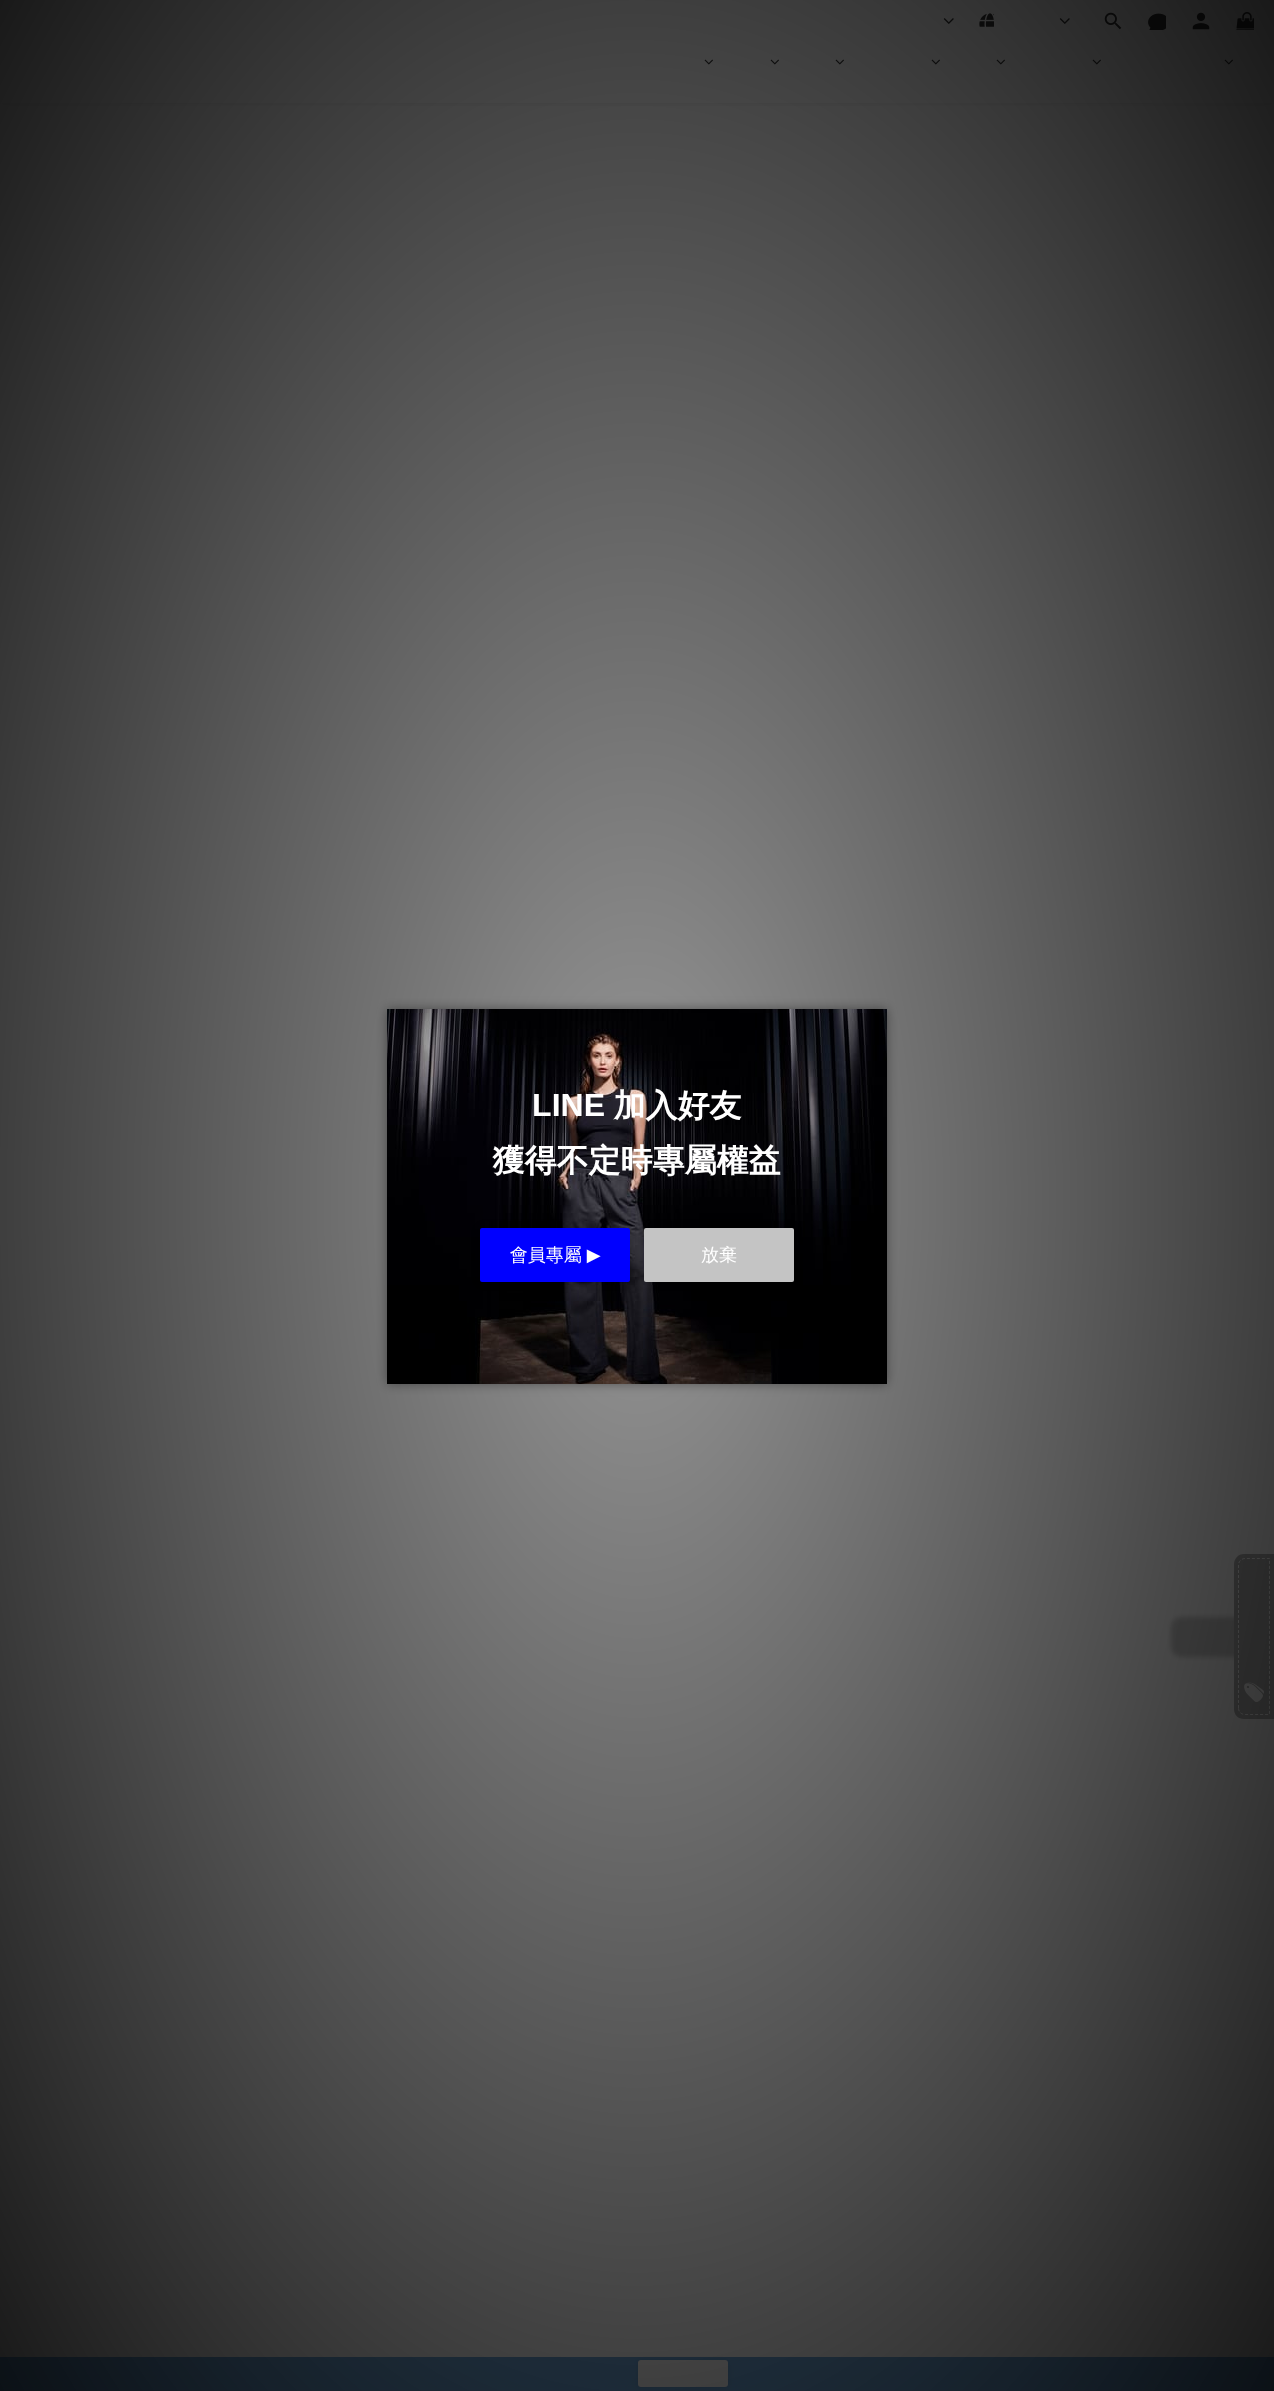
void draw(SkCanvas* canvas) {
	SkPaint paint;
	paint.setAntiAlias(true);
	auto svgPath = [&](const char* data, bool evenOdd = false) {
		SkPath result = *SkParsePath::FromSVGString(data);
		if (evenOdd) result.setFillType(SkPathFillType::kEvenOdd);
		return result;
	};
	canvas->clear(0xffffffff);
	canvas->save();
	canvas->clipRect(SkRect::MakeXYWH(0, 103, 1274, 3));
	paint.setColor(0x0f000000);
	paint.setMaskFilter(SkMaskFilter::MakeBlur(kNormal_SkBlurStyle, 3));
	canvas->drawRect(SkRect::MakeXYWH(0, 2, 1274, 103), paint);
	paint.setMaskFilter(nullptr);
	canvas->restore();
	canvas->drawImageRect(SkImages::DeferredFromEncodedData(SkData::MakeFromFileName("img1.png")), SkRect::MakeXYWH(943, 18, 11, 6), SkSamplingOptions());
	canvas->drawImageRect(SkImages::DeferredFromEncodedData(SkData::MakeFromFileName("img2.png")), SkRect::MakeXYWH(979, 13, 15, 14), SkSamplingOptions());
	canvas->drawImageRect(SkImages::DeferredFromEncodedData(SkData::MakeFromFileName("img1.png")), SkRect::MakeXYWH(1059, 18, 11, 6), SkSamplingOptions());
	canvas->drawImageRect(SkImages::DeferredFromEncodedData(SkData::MakeFromFileName("img3.png")), SkRect::MakeXYWH(1104, 12, 18, 18), SkSamplingOptions());
	canvas->drawImageRect(SkImages::DeferredFromEncodedData(SkData::MakeFromFileName("img4.png")), SkRect::MakeXYWH(1148, 13, 18, 17), SkSamplingOptions());
	canvas->drawImageRect(SkImages::DeferredFromEncodedData(SkData::MakeFromFileName("img5.png")), SkRect::MakeXYWH(1192, 12, 18, 18), SkSamplingOptions());
	canvas->drawImageRect(SkImages::DeferredFromEncodedData(SkData::MakeFromFileName("img6.png")), SkRect::MakeXYWH(1236, 12, 18, 18), SkSamplingOptions());
	canvas->drawImageRect(SkImages::DeferredFromEncodedData(SkData::MakeFromFileName("img7.png")), SkRect::MakeXYWH(704, 59, 9, 6), SkSamplingOptions());
	canvas->drawImageRect(SkImages::DeferredFromEncodedData(SkData::MakeFromFileName("img7.png")), SkRect::MakeXYWH(770, 59, 9, 6), SkSamplingOptions());
	canvas->drawImageRect(SkImages::DeferredFromEncodedData(SkData::MakeFromFileName("img7.png")), SkRect::MakeXYWH(835, 59, 9, 6), SkSamplingOptions());
	canvas->drawImageRect(SkImages::DeferredFromEncodedData(SkData::MakeFromFileName("img7.png")), SkRect::MakeXYWH(931, 59, 9, 6), SkSamplingOptions());
	canvas->drawImageRect(SkImages::DeferredFromEncodedData(SkData::MakeFromFileName("img7.png")), SkRect::MakeXYWH(996, 59, 9, 6), SkSamplingOptions());
	canvas->drawImageRect(SkImages::DeferredFromEncodedData(SkData::MakeFromFileName("img7.png")), SkRect::MakeXYWH(1092, 59, 9, 6), SkSamplingOptions());
	canvas->drawImageRect(SkImages::DeferredFromEncodedData(SkData::MakeFromFileName("img7.png")), SkRect::MakeXYWH(1224, 59, 9, 6), SkSamplingOptions());
	paint.setColor(0x33000000);
	paint.setMaskFilter(SkMaskFilter::MakeBlur(kNormal_SkBlurStyle, 2.5));
	canvas->drawRoundRect(SkRect::MakeXYWH(1171, 1617, 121, 40), 10, 10, paint);
	paint.setMaskFilter(nullptr);
	paint.setColor(0xffb1b1b1);
	canvas->drawPath(svgPath("M1234 1709V1564C1234 1559 1238 1554 1244 1554H1274V1719H1244C1238 1719 1234 1715 1234 1709Z"), paint);
	paint.setStroke(true);
	paint.setStrokeWidth(1);
	paint.setColor(0xffffffff);
	paint.setPathEffect(SkDashPathEffect::Make({{3, 2}}, 0));
	canvas->drawPath(svgPath("M1238.5 1708V1565C1238.5 1561.5 1241.5 1558.5 1245 1558.5H1269.5V1714.5H1245C1241.5 1714.5 1238.5 1712 1238.5 1708Z"), paint);
	paint.setPathEffect(nullptr);
	canvas->drawImageRect(SkImages::DeferredFromEncodedData(SkData::MakeFromFileName("img9.png")), SkRect::MakeXYWH(1244, 1682, 20, 20), SkSamplingOptions());
	paint.setStroke(false);
	paint.setColor(0xff6fa8dc);
	canvas->drawRect(SkRect::MakeXYWH(0, 2357, 1274, 34), paint);
	paint.setColor(0x1a000000);
	paint.setMaskFilter(SkMaskFilter::MakeBlur(kNormal_SkBlurStyle, 2.5));
	canvas->drawRoundRect(SkRect::MakeXYWH(638, 2360, 90, 27), 3, 3, paint);
	paint.setMaskFilter(nullptr);
	paint.setColor(0xffffffff);
	canvas->drawRoundRect(SkRect::MakeXYWH(638, 2360, 90, 27), 3, 3, paint);
	{
		const SkColor colors[] = {0x66000000, 0xe6000000};
		const float stops[] = {0, 1};
		SkMatrix m = SkMatrix::Translate(637, 1196).preScale(901, 1691);
		paint.setShader(SkGradientShader::MakeRadial({0, 0}, 1, colors, stops, 2, SkTileMode::kClamp, 0, &m));
		paint.setAlpha(255);
	}
	canvas->drawRect(SkRect::MakeXYWH(0, 0, 1274, 2391), paint);
	paint.setShader(nullptr);
	paint.setColor(0x66000000);
	paint.setMaskFilter(SkMaskFilter::MakeBlur(kNormal_SkBlurStyle, 5.5));
	canvas->drawRoundRect(SkRect::MakeXYWH(387, 1009, 500, 375), 2, 2, paint);
	paint.setMaskFilter(nullptr);
	canvas->drawImageRect(SkImages::DeferredFromEncodedData(SkData::MakeFromFileName("img8.png")), SkRect::MakeXYWH(387, 1009, 500, 375), SkSamplingOptions());
}
